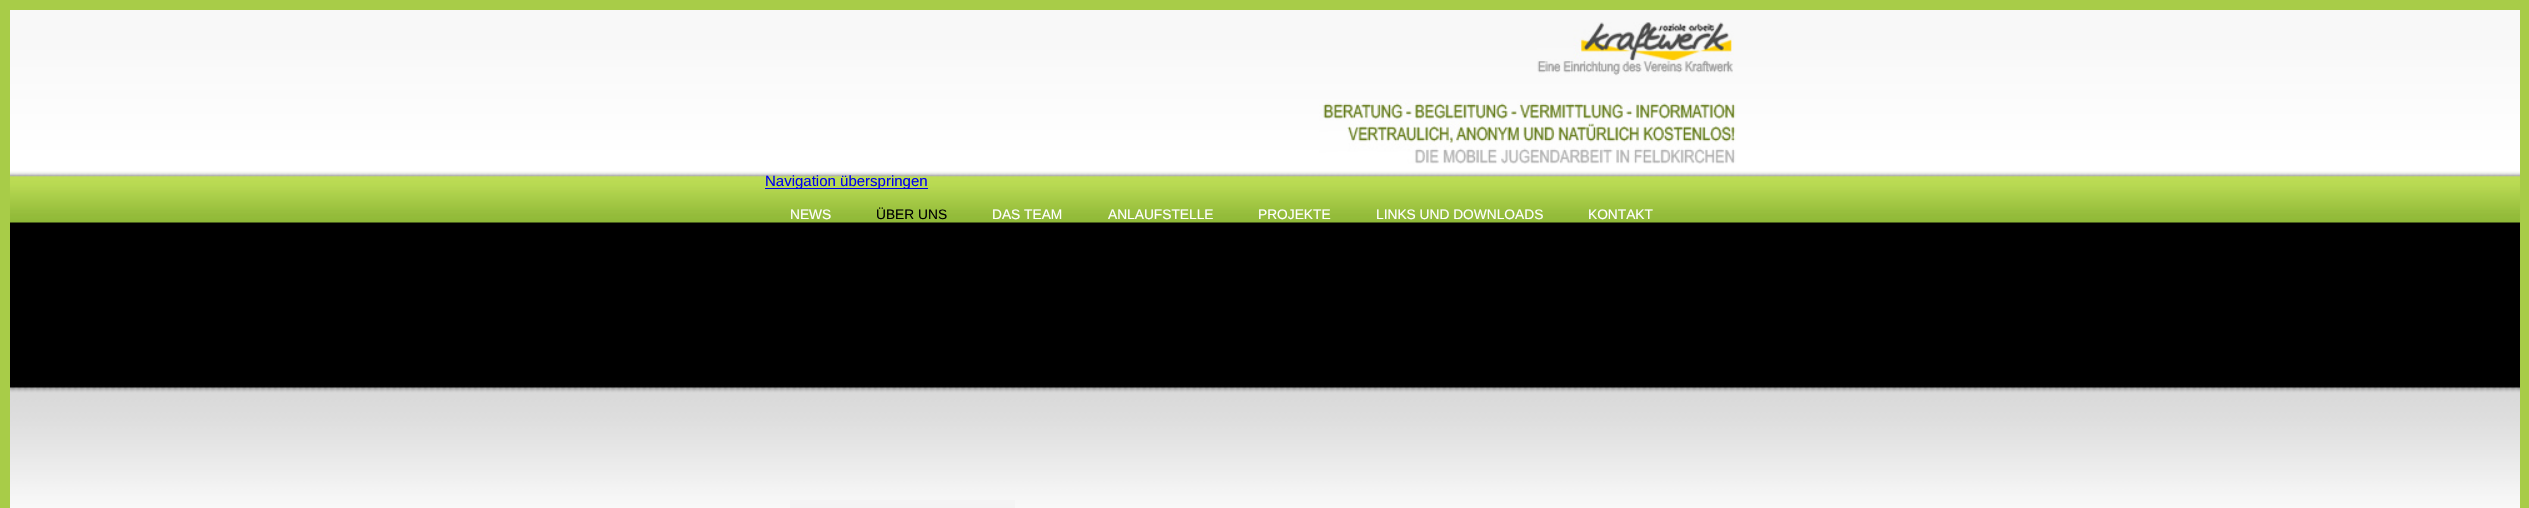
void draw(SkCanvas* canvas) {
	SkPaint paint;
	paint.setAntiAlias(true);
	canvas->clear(0xffa8cc48);
	canvas->drawImageRect(SkImages::DeferredFromEncodedData(SkData::MakeFromFileName("img1.png")), SkRect::MakeXYWH(10, 10, 2510, 498), SkSamplingOptions());
	canvas->drawImageRect(SkImages::DeferredFromEncodedData(SkData::MakeFromFileName("img2.png")), SkRect::MakeXYWH(1319, 100, 417, 64), SkSamplingOptions());
	canvas->drawImageRect(SkImages::DeferredFromEncodedData(SkData::MakeFromFileName("img3.png")), SkRect::MakeXYWH(1537, 22, 197, 54), SkSamplingOptions());
	paint.setColor(0xff0000ee);
	canvas->drawRect(SkRect::MakeXYWH(765, 188, 163, 1), paint);
	SkFont f1(fontMgr->matchFamilyStyle("Liberation Sans", SkFontStyle::Normal()), 15);
	f1.setSubpixel(true);
	canvas->drawString("Navigation überspringen", 765, 186, f1, paint);
	SkFont f2(fontMgr->matchFamilyStyle("Liberation Sans", SkFontStyle::Normal()), 13.75);
	f2.setSubpixel(true);
	paint.setColor(0xffffffff);
	canvas->drawString("NEWS", 790, 219, f2, paint);
	paint.setColor(0xff000000);
	canvas->drawString("ÜBER UNS", 876, 219, f2, paint);
	paint.setColor(0xffffffff);
	canvas->drawString("DAS TEAM", 992, 219, f2, paint);
	canvas->drawString("ANLAUFSTELLE", 1108, 219, f2, paint);
	canvas->drawString("PROJEKTE", 1258, 219, f2, paint);
	canvas->drawString("LINKS UND DOWNLOADS", 1376, 219, f2, paint);
	canvas->drawString("KONTAKT", 1588, 219, f2, paint);
	paint.setColor(0xfff4f4f4);
	canvas->drawRect(SkRect::MakeXYWH(790, 500, 225, 8), paint);
}
